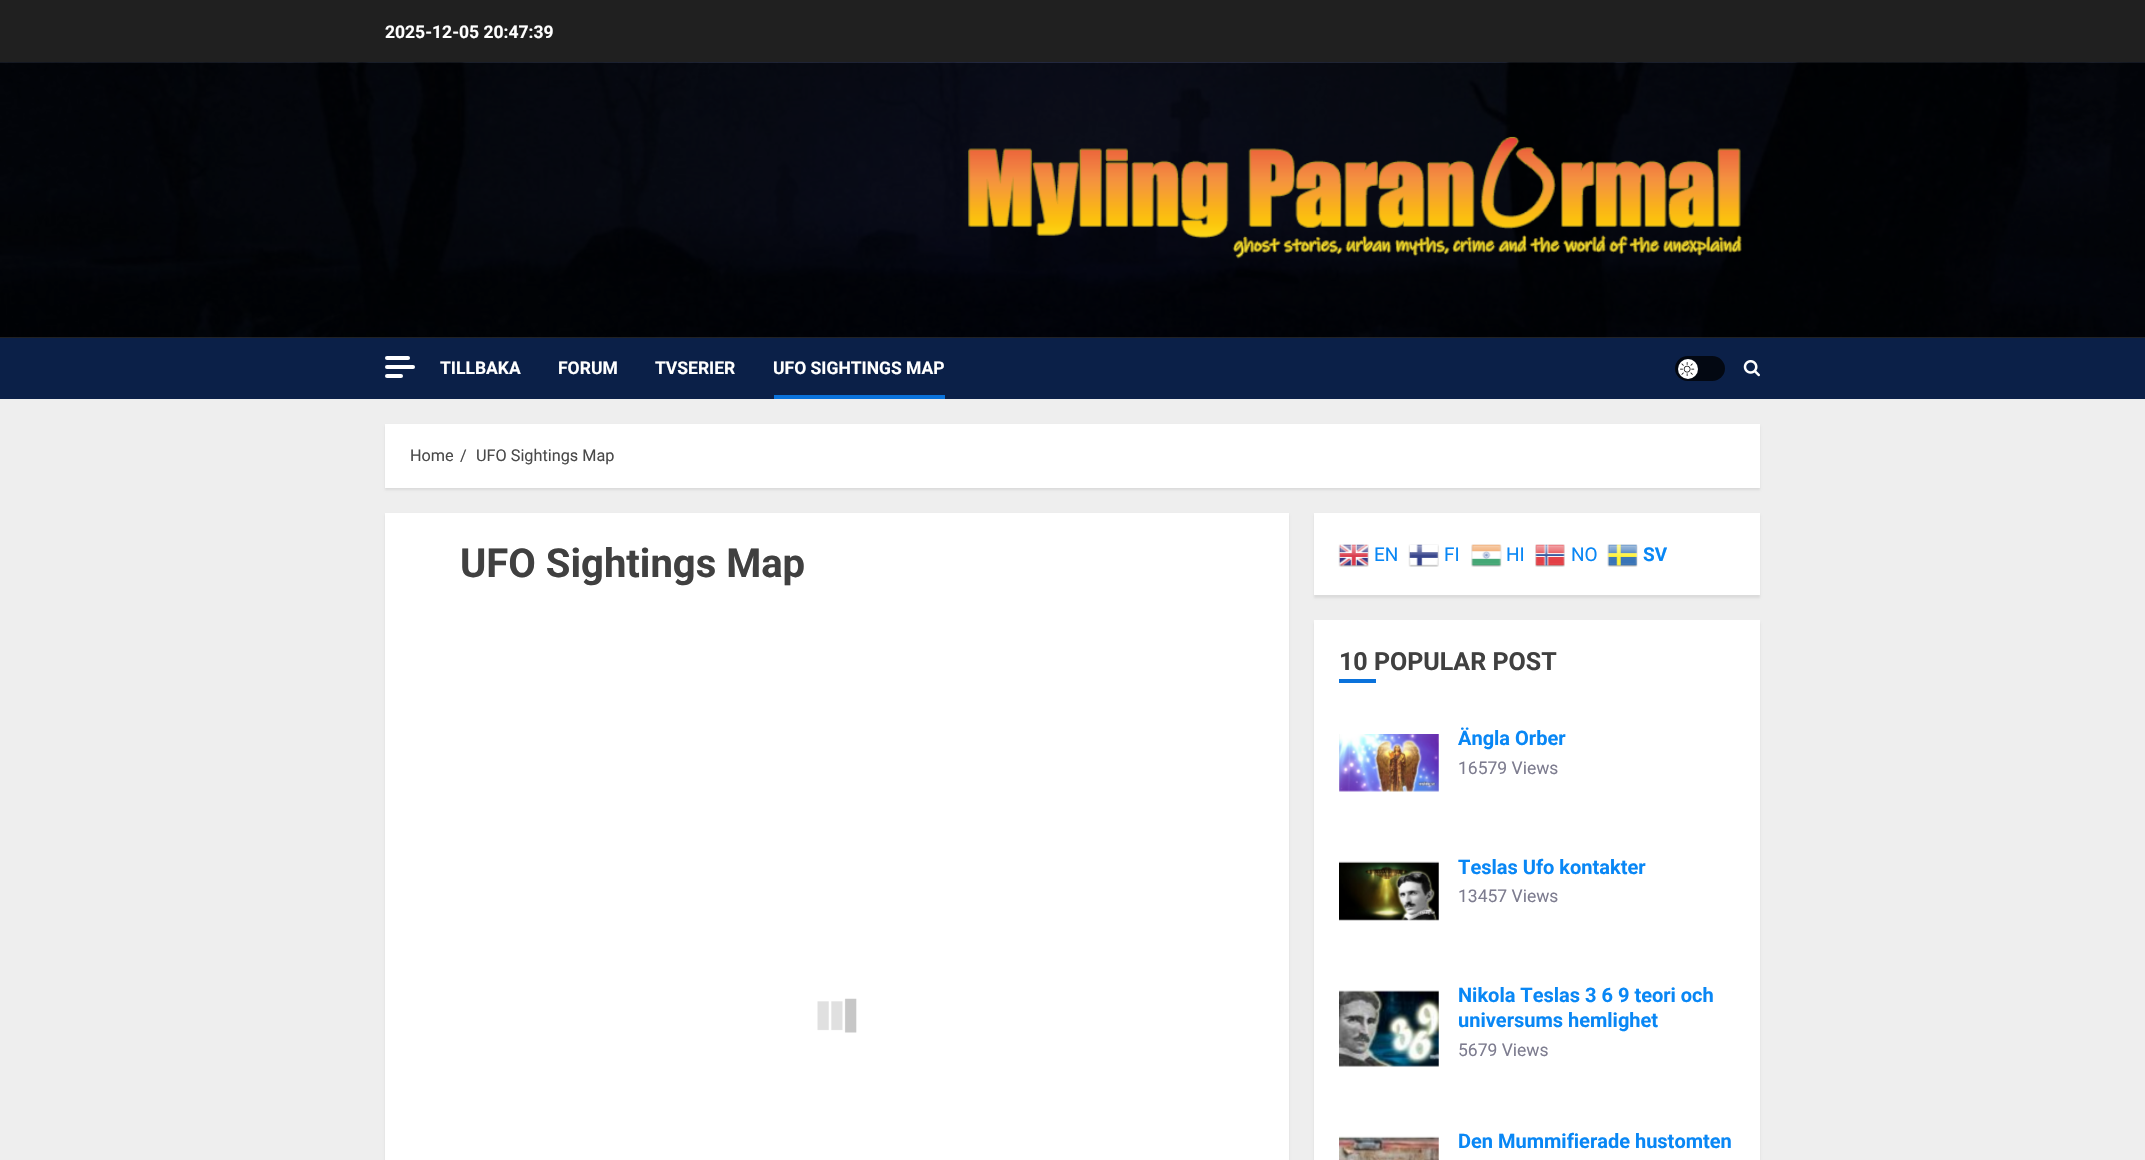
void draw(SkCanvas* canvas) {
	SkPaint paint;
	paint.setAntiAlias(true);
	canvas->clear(0xffeeeeee);
	paint.setColor(0xff202020);
	canvas->drawRect(SkRect::MakeXYWH(0, 0, 2145, 63), paint);
	SkFont f1(fontMgr->matchFamilyStyle("Roboto", SkFontStyle::Bold()), 17.5);
	f1.setSubpixel(true);
	paint.setColor(0xffffffff);
	canvas->drawString("2025-12-05 20:47:39", 385, 38, f1, paint);
	paint.setColor(0xff404040);
	canvas->drawRect(SkRect::MakeXYWH(0, 337, 2145, 1), paint);
	canvas->drawImageRect(SkImages::DeferredFromEncodedData(SkData::MakeFromFileName("img1.png")), SkRect::MakeXYWH(0, 62, 2145, 276), SkSamplingOptions());
	canvas->drawImageRect(SkImages::DeferredFromEncodedData(SkData::MakeFromFileName("img2.png")), SkRect::MakeXYWH(968, 136, 774, 123), SkSamplingOptions());
	paint.setColor(0xff0b2048);
	canvas->drawRect(SkRect::MakeXYWH(0, 338, 2145, 61), paint);
	paint.setColor(0xffffffff);
	canvas->drawRoundRect(SkRect::MakeXYWH(385, 356, 25, 4), 2, 2, paint);
	canvas->drawRoundRect(SkRect::MakeXYWH(385, 365, 30, 4), 2, 2, paint);
	canvas->drawRoundRect(SkRect::MakeXYWH(385, 374, 18, 4), 2, 2, paint);
	canvas->drawString("TILLBAKA", 440, 374, f1, paint);
	canvas->drawString("FORUM", 558, 374, f1, paint);
	canvas->drawString("TVSERIER", 655, 374, f1, paint);
	canvas->drawString("UFO SIGHTINGS MAP", 773, 374, f1, paint);
	paint.setColor(0xff0a72db);
	canvas->drawRect(SkRect::MakeXYWH(774, 395, 171, 4), paint);
	paint.setColor(0xff030812);
	canvas->drawRoundRect(SkRect::MakeXYWH(1675, 356, 50, 25), 12.5, 12.5, paint);
	paint.setColor(0xffffffff);
	canvas->drawCircle(1688, 369, 10, paint);
	canvas->drawImageRect(SkImages::DeferredFromEncodedData(SkData::MakeFromFileName("img3.png")), SkRect::MakeXYWH(1680, 362, 15, 14), SkSamplingOptions());
	canvas->drawImageRect(SkImages::DeferredFromEncodedData(SkData::MakeFromFileName("img4.png")), SkRect::MakeXYWH(1743, 360, 17, 17), SkSamplingOptions());
	paint.setColor(0x14000000);
	paint.setMaskFilter(SkMaskFilter::MakeBlur(kNormal_SkBlurStyle, 1));
	canvas->drawRect(SkRect::MakeXYWH(385, 426, 1375, 64), paint);
	paint.setMaskFilter(nullptr);
	paint.setColor(0xffffffff);
	canvas->drawRect(SkRect::MakeXYWH(385, 424, 1375, 64), paint);
	SkFont f2(fontMgr->matchFamilyStyle("Roboto", SkFontStyle::Normal()), 16.25);
	f2.setSubpixel(true);
	paint.setColor(0xff4a4a4a);
	canvas->drawString("Home", 410, 461, f2, paint);
	canvas->drawString("/", 460, 461, f2, paint);
	canvas->drawString("UFO Sightings Map", 476, 461, f2, paint);
	paint.setColor(0x14000000);
	paint.setMaskFilter(SkMaskFilter::MakeBlur(kNormal_SkBlurStyle, 1));
	canvas->drawRect(SkRect::MakeXYWH(385, 515, 904, 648), paint);
	paint.setMaskFilter(nullptr);
	paint.setColor(0xffffffff);
	canvas->drawRect(SkRect::MakeXYWH(385, 513, 904, 647), paint);
	SkFont f3(fontMgr->matchFamilyStyle("Roboto", SkFontStyle::Bold()), 40);
	f3.setSubpixel(true);
	paint.setColor(0xff404040);
	canvas->drawString("UFO Sightings Map", 460, 577, f3, paint);
	canvas->drawImageRect(SkImages::DeferredFromEncodedData(SkData::MakeFromFileName("img5.png")), SkRect::MakeXYWH(817, 998, 40, 35), SkSamplingOptions());
	paint.setColor(0x14000000);
	paint.setMaskFilter(SkMaskFilter::MakeBlur(kNormal_SkBlurStyle, 1));
	canvas->drawRect(SkRect::MakeXYWH(1314, 515, 446, 83), paint);
	paint.setMaskFilter(nullptr);
	paint.setColor(0xffffffff);
	canvas->drawRect(SkRect::MakeXYWH(1314, 513, 446, 82), paint);
	canvas->drawImageRect(SkImages::DeferredFromEncodedData(SkData::MakeFromFileName("img6.png")), SkRect::MakeXYWH(1338, 544, 31, 23), SkSamplingOptions());
	SkFont f4(fontMgr->matchFamilyStyle("Roboto", SkFontStyle::Normal()), 19);
	f4.setSubpixel(true);
	paint.setColor(0xff0987f5);
	canvas->drawString("EN", 1374, 561, f4, paint);
	canvas->drawImageRect(SkImages::DeferredFromEncodedData(SkData::MakeFromFileName("img7.png")), SkRect::MakeXYWH(1408, 544, 31, 23), SkSamplingOptions());
	canvas->drawString("FI", 1444, 561, f4, paint);
	canvas->drawImageRect(SkImages::DeferredFromEncodedData(SkData::MakeFromFileName("img8.png")), SkRect::MakeXYWH(1471, 544, 31, 23), SkSamplingOptions());
	canvas->drawString("HI", 1506, 561, f4, paint);
	canvas->drawImageRect(SkImages::DeferredFromEncodedData(SkData::MakeFromFileName("img9.png")), SkRect::MakeXYWH(1535, 544, 30, 23), SkSamplingOptions());
	canvas->drawString("NO", 1571, 561, f4, paint);
	canvas->drawImageRect(SkImages::DeferredFromEncodedData(SkData::MakeFromFileName("img10.png")), SkRect::MakeXYWH(1607, 544, 31, 23), SkSamplingOptions());
	SkFont f5(fontMgr->matchFamilyStyle("Roboto", SkFontStyle::Bold()), 19);
	f5.setSubpixel(true);
	canvas->drawString("SV", 1643, 561, f5, paint);
	paint.setColor(0x14000000);
	paint.setMaskFilter(SkMaskFilter::MakeBlur(kNormal_SkBlurStyle, 1));
	canvas->drawRect(SkRect::MakeXYWH(1314, 623, 446, 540), paint);
	paint.setMaskFilter(nullptr);
	paint.setColor(0xffffffff);
	canvas->drawRect(SkRect::MakeXYWH(1314, 620, 446, 540), paint);
	SkFont f6(fontMgr->matchFamilyStyle("Roboto", SkFontStyle::Bold()), 25);
	f6.setSubpixel(true);
	paint.setColor(0xff404040);
	canvas->drawString("10 POPULAR POST", 1339, 670, f6, paint);
	paint.setColor(0xff0a72db);
	canvas->drawRect(SkRect::MakeXYWH(1339, 679, 37, 4), paint);
	canvas->drawImageRect(SkImages::DeferredFromEncodedData(SkData::MakeFromFileName("img11.png")), SkRect::MakeXYWH(1339, 734, 100, 58), SkSamplingOptions());
	SkFont f7(fontMgr->matchFamilyStyle("Roboto", SkFontStyle::Bold()), 20);
	f7.setSubpixel(true);
	paint.setColor(0xff0987f5);
	canvas->drawString("Ängla Orber", 1458, 745, f7, paint);
	SkFont f8(fontMgr->matchFamilyStyle("Roboto", SkFontStyle::Normal()), 17.5);
	f8.setSubpixel(true);
	paint.setColor(0xff7d7c8f);
	canvas->drawString("16579 Views", 1458, 774, f8, paint);
	canvas->drawImageRect(SkImages::DeferredFromEncodedData(SkData::MakeFromFileName("img12.png")), SkRect::MakeXYWH(1339, 861, 100, 60), SkSamplingOptions());
	paint.setColor(0xff0987f5);
	canvas->drawString("Teslas Ufo kontakter", 1458, 874, f7, paint);
	paint.setColor(0xff7d7c8f);
	canvas->drawString("13457 Views", 1458, 902, f8, paint);
	canvas->drawImageRect(SkImages::DeferredFromEncodedData(SkData::MakeFromFileName("img13.png")), SkRect::MakeXYWH(1339, 990, 100, 77), SkSamplingOptions());
	paint.setColor(0xff0987f5);
	canvas->drawString("Nikola Teslas 3 6 9 teori och", 1458, 1002, f7, paint);
	canvas->drawString("universums hemlighet", 1458, 1027, f7, paint);
	paint.setColor(0xff7d7c8f);
	canvas->drawString("5679 Views", 1458, 1056, f8, paint);
	canvas->drawImageRect(SkImages::DeferredFromEncodedData(SkData::MakeFromFileName("img14.png")), SkRect::MakeXYWH(1339, 1136, 100, 24), SkSamplingOptions());
	paint.setColor(0xff0987f5);
	canvas->drawString("Den Mummifierade hustomten", 1458, 1148, f7, paint);
}
